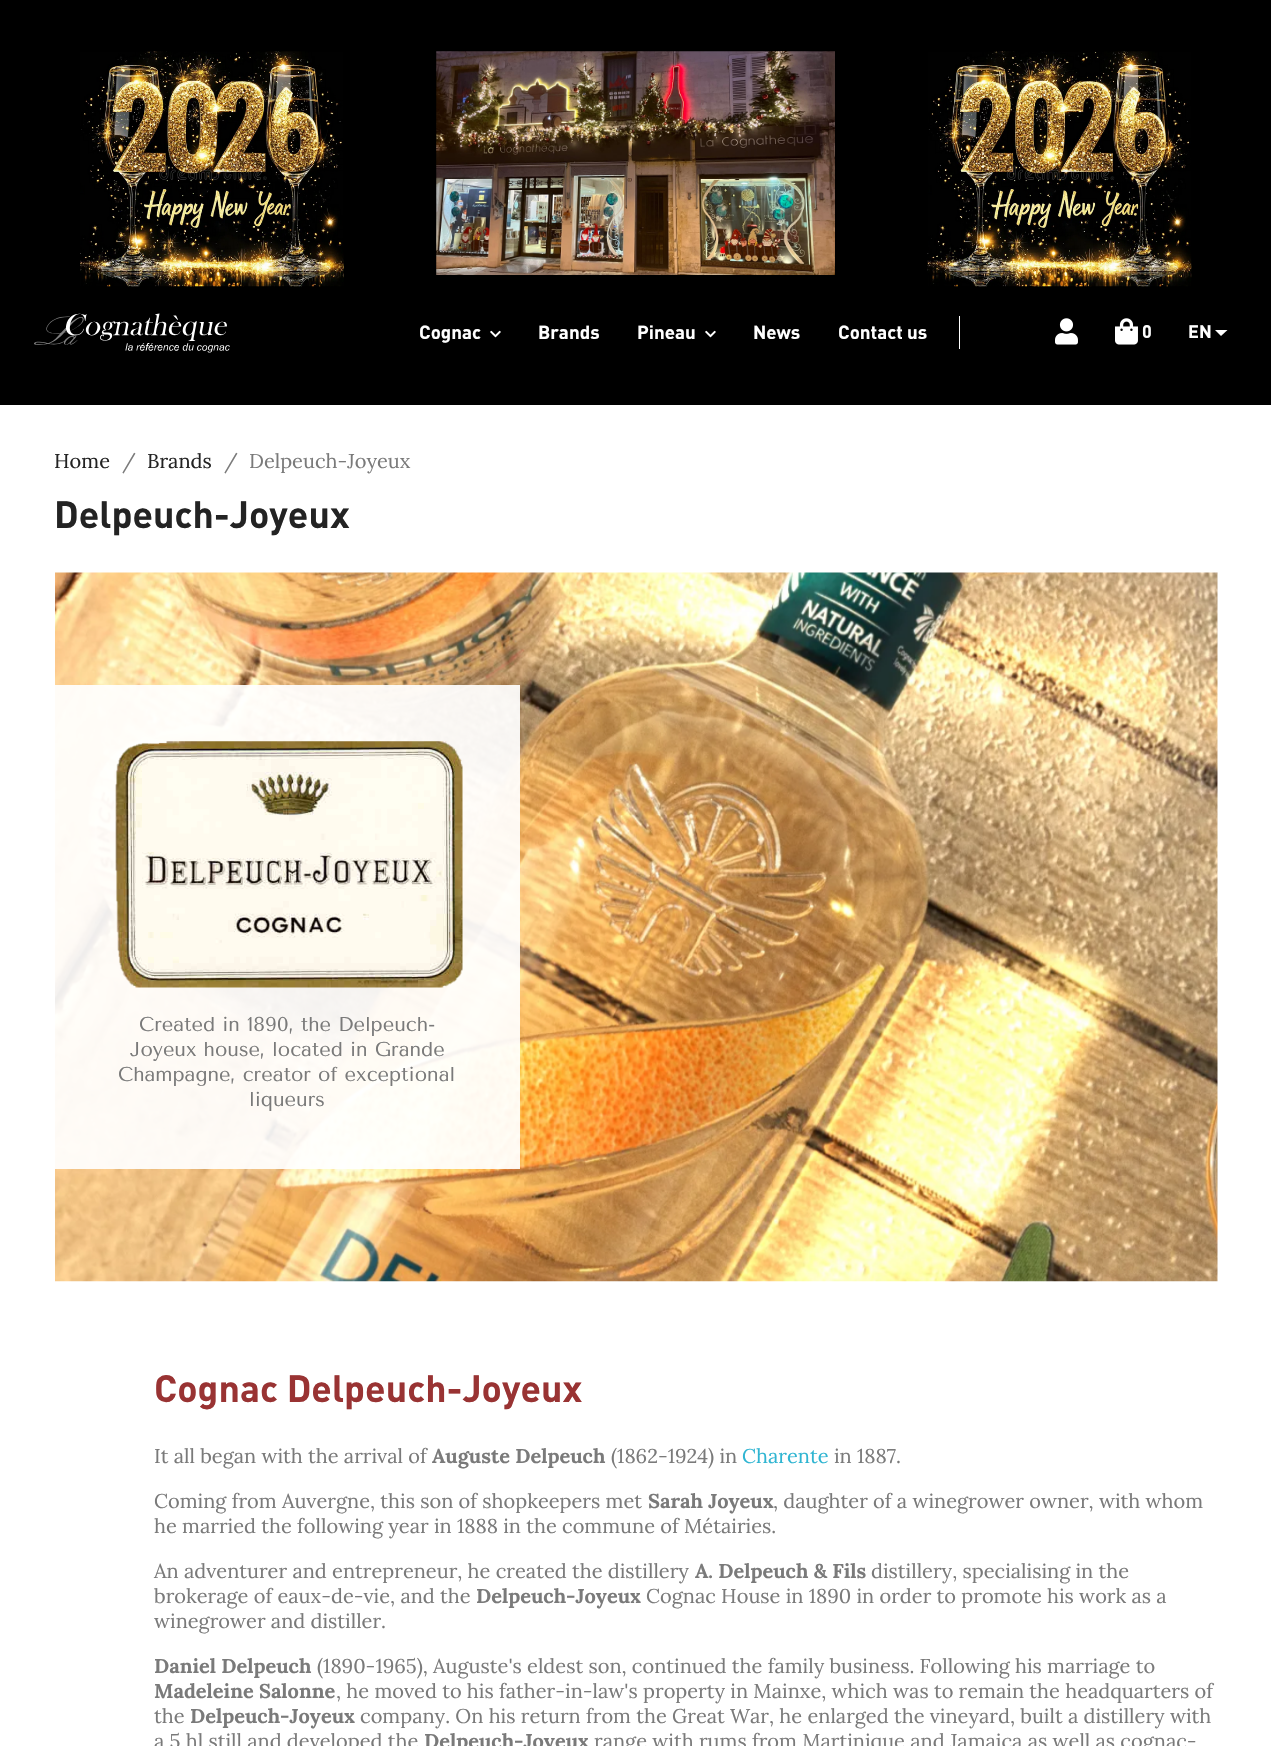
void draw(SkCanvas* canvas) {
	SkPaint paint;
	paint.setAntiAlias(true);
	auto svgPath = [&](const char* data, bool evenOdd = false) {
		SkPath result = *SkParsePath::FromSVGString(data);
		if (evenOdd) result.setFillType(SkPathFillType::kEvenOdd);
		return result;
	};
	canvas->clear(0xffffffff);
	paint.setColor(0xff000000);
	canvas->drawRect(SkRect::MakeXYWH(0, 0, 1271, 405), paint);
	canvas->drawImageRect(SkImages::DeferredFromEncodedData(SkData::MakeFromFileName("img1.png")), SkRect::MakeXYWH(80, 51, 264, 236), SkSamplingOptions());
	canvas->drawImageRect(SkImages::DeferredFromEncodedData(SkData::MakeFromFileName("img2.png")), SkRect::MakeXYWH(436, 51, 399, 224), SkSamplingOptions());
	canvas->drawImageRect(SkImages::DeferredFromEncodedData(SkData::MakeFromFileName("img3.png")), SkRect::MakeXYWH(927, 51, 265, 236), SkSamplingOptions());
	canvas->drawImageRect(SkImages::DeferredFromEncodedData(SkData::MakeFromFileName("img4.png")), SkRect::MakeXYWH(34, 313, 196, 40), SkSamplingOptions());
	paint.setColor(0xffffffff);
	canvas->drawRect(SkRect::MakeXYWH(959, 316, 1, 33), paint);
	SkFont f1(fontMgr->matchFamilyStyle("DIN", SkFontStyle::Bold()), 18.75);
	f1.setSubpixel(true);
	canvas->drawString("Cognac", 419, 339, f1, paint);
	canvas->drawImageRect(SkImages::DeferredFromEncodedData(SkData::MakeFromFileName("img5.png")), SkRect::MakeXYWH(490, 330, 11, 8), SkSamplingOptions());
	canvas->drawString("Brands", 538, 339, f1, paint);
	canvas->drawString("Pineau", 637, 339, f1, paint);
	canvas->drawImageRect(SkImages::DeferredFromEncodedData(SkData::MakeFromFileName("img5.png")), SkRect::MakeXYWH(705, 330, 11, 8), SkSamplingOptions());
	canvas->drawString("News", 753, 339, f1, paint);
	canvas->drawString("Contact us", 838, 339, f1, paint);
	canvas->drawImageRect(SkImages::DeferredFromEncodedData(SkData::MakeFromFileName("img6.png")), SkRect::MakeXYWH(1055, 318, 23, 27), SkSamplingOptions());
	canvas->drawImageRect(SkImages::DeferredFromEncodedData(SkData::MakeFromFileName("img7.png")), SkRect::MakeXYWH(1115, 318, 23, 27), SkSamplingOptions());
	SkFont f2(fontMgr->matchFamilyStyle("DIN", SkFontStyle::Bold()), 18);
	f2.setSubpixel(true);
	canvas->drawString("0", 1142, 338, f2, paint);
	canvas->drawString("EN", 1188, 338, f2, paint);
	canvas->drawPath(svgPath("M1215 330H1227.5L1221 336Z"), paint);
	SkFont f3(fontMgr->matchFamilyStyle("Lora", SkFontStyle::Normal()), 20);
	f3.setSubpixel(true);
	paint.setColor(0xff232323);
	canvas->drawString("Home", 54, 468, f3, paint);
	paint.setColor(0xff7a7a7a);
	canvas->drawString("/", 122, 468, f3, paint);
	paint.setColor(0xff232323);
	canvas->drawString("Brands", 147, 468, f3, paint);
	paint.setColor(0xff7a7a7a);
	canvas->drawString("/", 224, 468, f3, paint);
	canvas->drawString("Delpeuch-Joyeux", 249, 468, f3, paint);
	SkFont f4(fontMgr->matchFamilyStyle("DIN", SkFontStyle::Bold()), 37.5);
	f4.setSubpixel(true);
	paint.setColor(0xff232323);
	canvas->drawString("Delpeuch-Joyeux", 54, 528, f4, paint);
	canvas->drawImageRect(SkImages::DeferredFromEncodedData(SkData::MakeFromFileName("img8.png")), SkRect::MakeXYWH(55, 572, 1163, 710), SkSamplingOptions());
	paint.setColor(0xebffffff);
	canvas->drawRect(SkRect::MakeXYWH(55, 685, 465, 484), paint);
	canvas->drawImageRect(SkImages::DeferredFromEncodedData(SkData::MakeFromFileName("img9.png")), SkRect::MakeXYWH(115, 741, 348, 247), SkSamplingOptions());
	SkFont f5(fontMgr->matchFamilyStyle("Tenor Sans", SkFontStyle::Normal()), 20);
	f5.setSubpixel(true);
	paint.setColor(0xff7a7a7a);
	canvas->drawString("Created in 1890, the Delpeuch-", 139, 1031, f5, paint);
	canvas->drawString("Joyeux house, located in Grande", 130, 1056, f5, paint);
	canvas->drawString("Champagne, creator of exceptional", 118, 1081, f5, paint);
	canvas->drawString("liqueurs", 249, 1106, f5, paint);
	paint.setColor(0xff993333);
	canvas->drawString("Cognac Delpeuch-Joyeux", 154, 1402, f4, paint);
	paint.setColor(0xff7a7a7a);
	canvas->drawString("It all began with the arrival of", 154, 1463, f3, paint);
	SkFont f6(fontMgr->matchFamilyStyle("Lora", SkFontStyle::Bold()), 20);
	f6.setSubpixel(true);
	canvas->drawString("Auguste Delpeuch", 432, 1463, f6, paint);
	canvas->drawString("(1862-1924) in", 611, 1463, f3, paint);
	paint.setColor(0xff2fb5d2);
	canvas->drawString("Charente", 742, 1463, f3, paint);
	paint.setColor(0xff7a7a7a);
	canvas->drawString("in 1887.", 834, 1463, f3, paint);
	canvas->drawString("Coming from Auvergne, this son of shopkeepers met", 154, 1508, f3, paint);
	canvas->drawString("Sarah Joyeux", 648, 1508, f6, paint);
	canvas->drawString(", daughter of a winegrower owner, with whom", 773, 1508, f3, paint);
	canvas->drawString("he married the following year in 1888 in the commune of Métairies.", 154, 1533, f3, paint);
	canvas->drawString("An adventurer and entrepreneur, he created the distillery", 154, 1578, f3, paint);
	canvas->drawString("A. Delpeuch & Fils", 695, 1578, f6, paint);
	canvas->drawString("distillery, specialising in the", 871, 1578, f3, paint);
	canvas->drawString("brokerage of eaux-de-vie, and the", 154, 1603, f3, paint);
	canvas->drawString("Delpeuch-Joyeux", 476, 1603, f6, paint);
	canvas->drawString("Cognac House in 1890 in order to promote his work as a", 646, 1603, f3, paint);
	canvas->drawString("winegrower and distiller.", 154, 1628, f3, paint);
	canvas->drawString("Daniel Delpeuch", 154, 1673, f6, paint);
	canvas->drawString("(1890-1965), Auguste's eldest son, continued the family business. Following his marriage to", 317, 1673, f3, paint);
	canvas->drawString("Madeleine Salonne", 154, 1698, f6, paint);
	canvas->drawString(", he moved to his father-in-law's property in Mainxe, which was to remain the headquarters of", 336, 1698, f3, paint);
	canvas->drawString("the", 154, 1723, f3, paint);
	canvas->drawString("Delpeuch-Joyeux", 190, 1723, f6, paint);
	canvas->drawString("company. On his return from the Great War, he enlarged the vineyard, built a distillery with", 360, 1723, f3, paint);
	canvas->drawString("a 5 hl still and developed the", 154, 1748, f3, paint);
	canvas->drawString("Delpeuch-Joyeux", 424, 1748, f6, paint);
	canvas->drawString("range with rums from Martinique and Jamaica as well as cognac-", 594, 1748, f3, paint);
}
